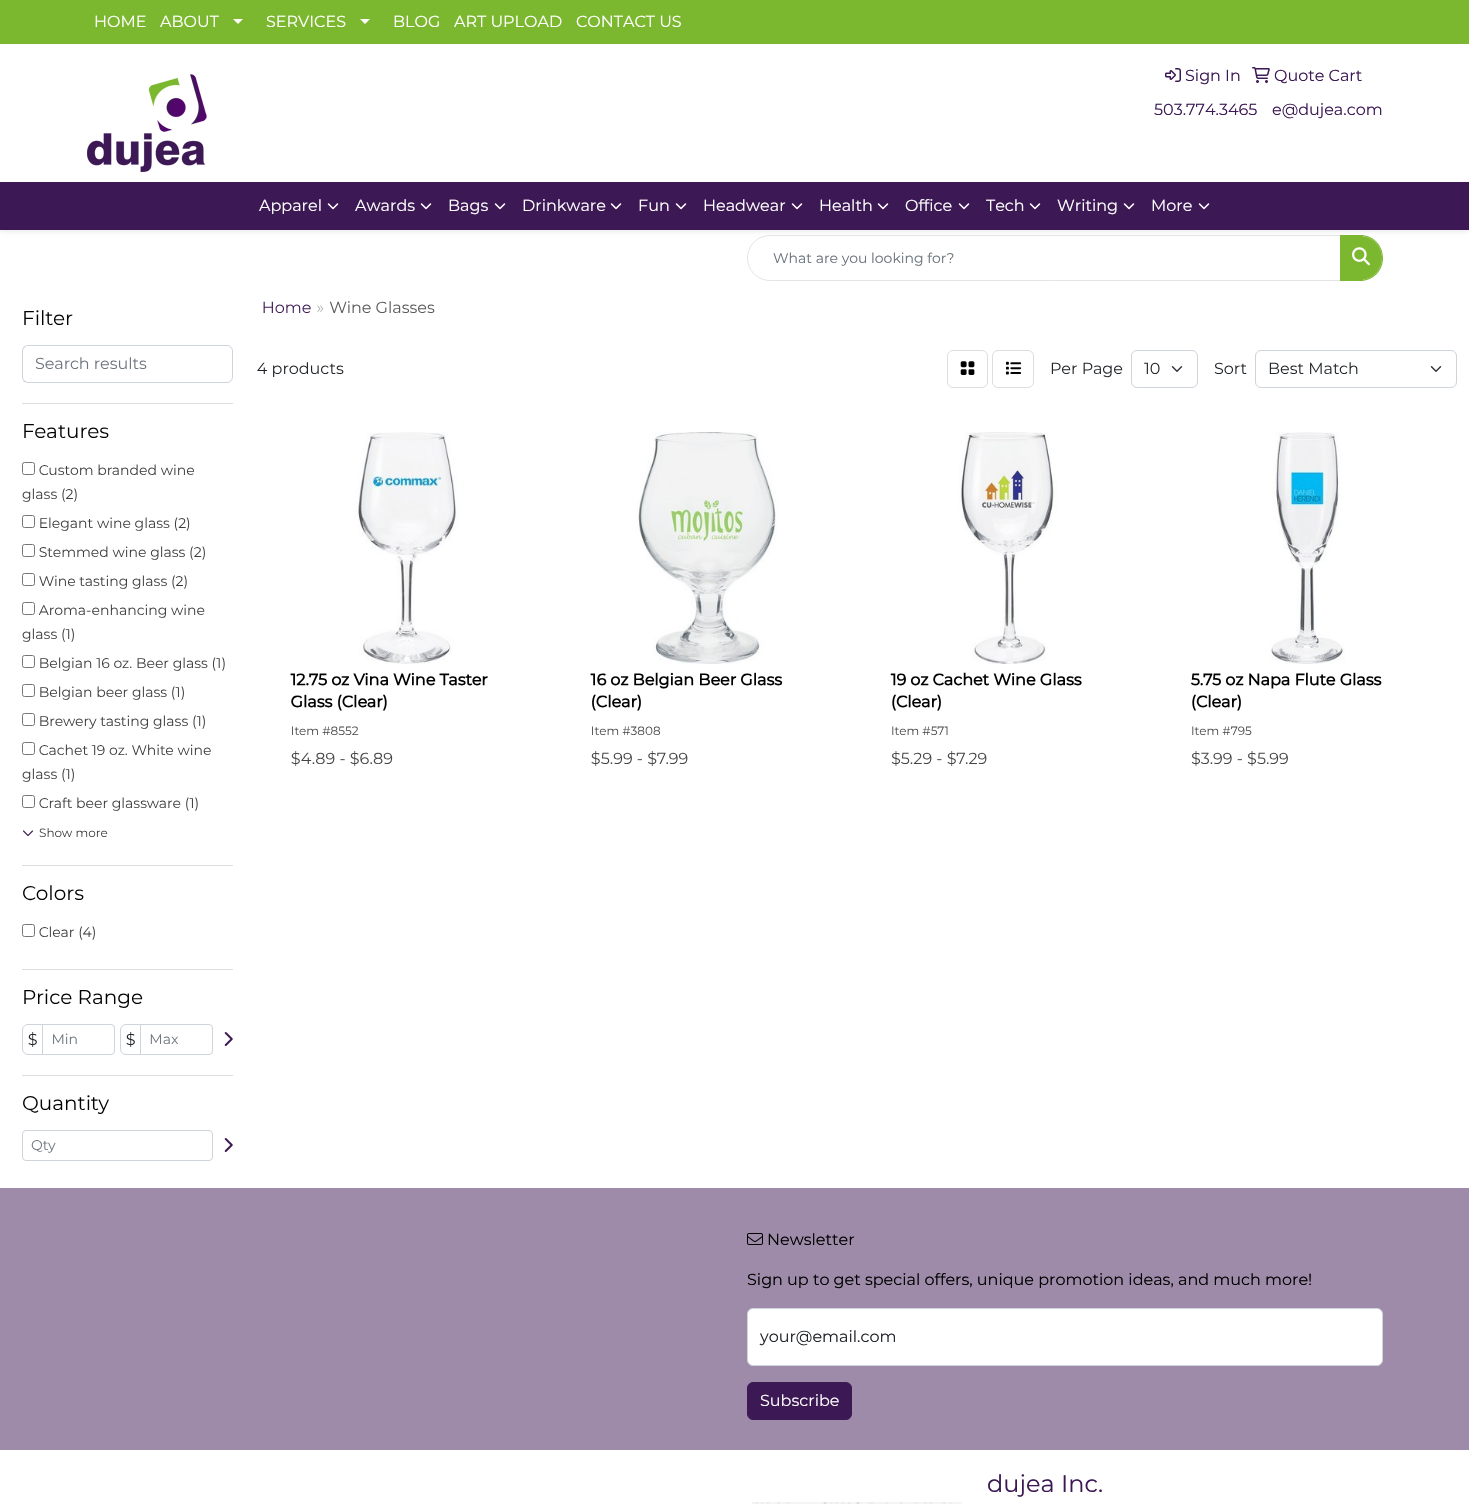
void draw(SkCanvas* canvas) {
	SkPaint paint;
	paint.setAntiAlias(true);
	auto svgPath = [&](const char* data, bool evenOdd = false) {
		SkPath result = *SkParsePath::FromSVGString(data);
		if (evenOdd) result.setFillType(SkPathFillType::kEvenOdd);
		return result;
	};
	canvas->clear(0xffffffff);
	paint.setColor(0xff7cb82f);
	canvas->drawRect(SkRect::MakeXYWH(0, 0, 1469, 44), paint);
	SkFont f1(fontMgr->matchFamilyStyle("Montserrat", SkFontStyle(100, SkFontStyle::kNormal_Width, SkFontStyle::kUpright_Slant)), 16);
	f1.setSubpixel(true);
	paint.setColor(0xffffffff);
	canvas->drawString("HOME", 94, 27, f1, paint);
	canvas->drawString("ABOUT", 160, 27, f1, paint);
	canvas->drawPath(svgPath("M233 19H243L238 24Z"), paint);
	canvas->drawString("SERVICES", 266, 27, f1, paint);
	canvas->drawPath(svgPath("M360 19H370L365 24Z"), paint);
	canvas->drawString("BLOG", 393, 27, f1, paint);
	canvas->drawString("ART UPLOAD", 454, 27, f1, paint);
	canvas->drawString("CONTACT US", 576, 27, f1, paint);
	canvas->drawImageRect(SkImages::DeferredFromEncodedData(SkData::MakeFromFileName("img1.png")), SkRect::MakeXYWH(87, 74, 120, 98), SkSamplingOptions());
	canvas->drawImageRect(SkImages::DeferredFromEncodedData(SkData::MakeFromFileName("img2.png")), SkRect::MakeXYWH(1165, 68, 16, 14), SkSamplingOptions());
	paint.setColor(0xff3c1854);
	canvas->drawString("Sign In", 1185, 81, f1, paint);
	canvas->drawImageRect(SkImages::DeferredFromEncodedData(SkData::MakeFromFileName("img3.png")), SkRect::MakeXYWH(1252, 67, 18, 16), SkSamplingOptions());
	canvas->drawString("Quote Cart", 1274, 81, f1, paint);
	canvas->drawString("503.774.3465", 1154, 115, f1, paint);
	canvas->drawString("e@dujea.com", 1272, 115, f1, paint);
	paint.setColor(0x12000000);
	paint.setMaskFilter(SkMaskFilter::MakeBlur(kNormal_SkBlurStyle, 2));
	canvas->drawRect(SkRect::MakeXYWH(0, 184, 1469, 48), paint);
	paint.setMaskFilter(nullptr);
	paint.setColor(0xff3c1854);
	canvas->drawRect(SkRect::MakeXYWH(0, 182, 1469, 48), paint);
	paint.setColor(0xffffffff);
	canvas->drawString("Apparel", 259, 211, f1, paint);
	canvas->drawImageRect(SkImages::DeferredFromEncodedData(SkData::MakeFromFileName("img4.png")), SkRect::MakeXYWH(327, 203, 12, 7), SkSamplingOptions());
	canvas->drawString("Awards", 355, 211, f1, paint);
	canvas->drawImageRect(SkImages::DeferredFromEncodedData(SkData::MakeFromFileName("img4.png")), SkRect::MakeXYWH(420, 203, 12, 7), SkSamplingOptions());
	canvas->drawString("Bags", 448, 211, f1, paint);
	canvas->drawImageRect(SkImages::DeferredFromEncodedData(SkData::MakeFromFileName("img4.png")), SkRect::MakeXYWH(494, 203, 12, 7), SkSamplingOptions());
	canvas->drawString("Drinkware", 522, 211, f1, paint);
	canvas->drawImageRect(SkImages::DeferredFromEncodedData(SkData::MakeFromFileName("img4.png")), SkRect::MakeXYWH(610, 203, 12, 7), SkSamplingOptions());
	canvas->drawString("Fun", 638, 211, f1, paint);
	canvas->drawImageRect(SkImages::DeferredFromEncodedData(SkData::MakeFromFileName("img4.png")), SkRect::MakeXYWH(675, 203, 12, 7), SkSamplingOptions());
	canvas->drawString("Headwear", 703, 211, f1, paint);
	canvas->drawImageRect(SkImages::DeferredFromEncodedData(SkData::MakeFromFileName("img4.png")), SkRect::MakeXYWH(791, 203, 12, 7), SkSamplingOptions());
	canvas->drawString("Health", 819, 211, f1, paint);
	canvas->drawImageRect(SkImages::DeferredFromEncodedData(SkData::MakeFromFileName("img4.png")), SkRect::MakeXYWH(877, 203, 12, 7), SkSamplingOptions());
	canvas->drawString("Office", 905, 211, f1, paint);
	canvas->drawImageRect(SkImages::DeferredFromEncodedData(SkData::MakeFromFileName("img4.png")), SkRect::MakeXYWH(958, 203, 12, 7), SkSamplingOptions());
	canvas->drawString("Tech", 986, 211, f1, paint);
	canvas->drawImageRect(SkImages::DeferredFromEncodedData(SkData::MakeFromFileName("img4.png")), SkRect::MakeXYWH(1029, 203, 12, 7), SkSamplingOptions());
	canvas->drawString("Writing", 1057, 211, f1, paint);
	canvas->drawImageRect(SkImages::DeferredFromEncodedData(SkData::MakeFromFileName("img4.png")), SkRect::MakeXYWH(1123, 203, 12, 7), SkSamplingOptions());
	canvas->drawString("More", 1151, 211, f1, paint);
	canvas->drawImageRect(SkImages::DeferredFromEncodedData(SkData::MakeFromFileName("img4.png")), SkRect::MakeXYWH(1198, 203, 12, 7), SkSamplingOptions());
	paint.setStroke(true);
	paint.setStrokeWidth(1);
	paint.setColor(0xffe4e4e4);
	canvas->drawPath(svgPath("M770 235.5H1340.5V280.5H770C757.5 280.5 747.5 270.5 747.5 258C747.5 245.5 757.5 235.5 770 235.5Z"), paint);
	SkFont f2(fontMgr->matchFamilyStyle("Montserrat", SkFontStyle(100, SkFontStyle::kNormal_Width, SkFontStyle::kUpright_Slant)), 14);
	f2.setSubpixel(true);
	paint.setStroke(false);
	paint.setColor(0xff6c757d);
	canvas->drawString("What are you looking for?", 773, 263, f2, paint);
	paint.setColor(0xff7cb82f);
	canvas->drawPath(svgPath("M1340 236H1360C1372 236 1382 246 1382 258C1382 270 1372 280 1360 280H1340Z"), paint);
	canvas->drawPath(svgPath("M1340 235H1360C1373 235 1383 245 1383 258C1383 271 1373 281 1360 281H1340ZM1340 236H1360C1372 236 1382 246 1382 258C1382 270 1372 280 1360 280H1340Z", true), paint);
	canvas->drawImageRect(SkImages::DeferredFromEncodedData(SkData::MakeFromFileName("img5.png")), SkRect::MakeXYWH(1352, 247, 18, 19), SkSamplingOptions());
	canvas->drawImageRect(SkImages::DeferredFromEncodedData(SkData::MakeFromFileName("img6.png")), SkRect::MakeXYWH(22, 301, 1435, 860), SkSamplingOptions());
	paint.setColor(0xff9d8ba9);
	canvas->drawRect(SkRect::MakeXYWH(0, 1188, 1469, 262), paint);
	canvas->drawImageRect(SkImages::DeferredFromEncodedData(SkData::MakeFromFileName("img7.png")), SkRect::MakeXYWH(747, 1233, 16, 12), SkSamplingOptions());
	paint.setColor(0xff000000);
	canvas->drawString("Newsletter", 767, 1245, f1, paint);
	canvas->drawString("Sign up to get special offers, unique promotion ideas, and much more!", 747, 1285, f1, paint);
	paint.setColor(0xffffffff);
	canvas->drawRoundRect(SkRect::MakeXYWH(747.5, 1308.5, 635, 57), 5.5, 5.5, paint);
	paint.setStroke(true);
	paint.setColor(0xffced4da);
	canvas->drawRoundRect(SkRect::MakeXYWH(747.5, 1308.5, 635, 57), 5.5, 5.5, paint);
	paint.setStroke(false);
	paint.setColor(0xff212529);
	canvas->drawString("your@email.com", 760, 1342, f1, paint);
	paint.setColor(0xff3c1854);
	canvas->drawRoundRect(SkRect::MakeXYWH(747.5, 1382.5, 104, 37), 5.5, 5.5, paint);
	paint.setStroke(true);
	canvas->drawRoundRect(SkRect::MakeXYWH(747.5, 1382.5, 104, 37), 5.5, 5.5, paint);
	paint.setStroke(false);
	paint.setColor(0xffffffff);
	canvas->drawString("Subscribe", 760, 1406, f1, paint);
	SkFont f3(fontMgr->matchFamilyStyle("Montserrat", SkFontStyle(100, SkFontStyle::kNormal_Width, SkFontStyle::kUpright_Slant)), 24);
	f3.setSubpixel(true);
	paint.setColor(0xff3c1854);
	canvas->drawString("dujea Inc.", 987, 1492, f3, paint);
	canvas->drawImageRect(SkImages::DeferredFromEncodedData(SkData::MakeFromFileName("img8.png")), SkRect::MakeXYWH(752, 1502, 210, 2), SkSamplingOptions());
}
